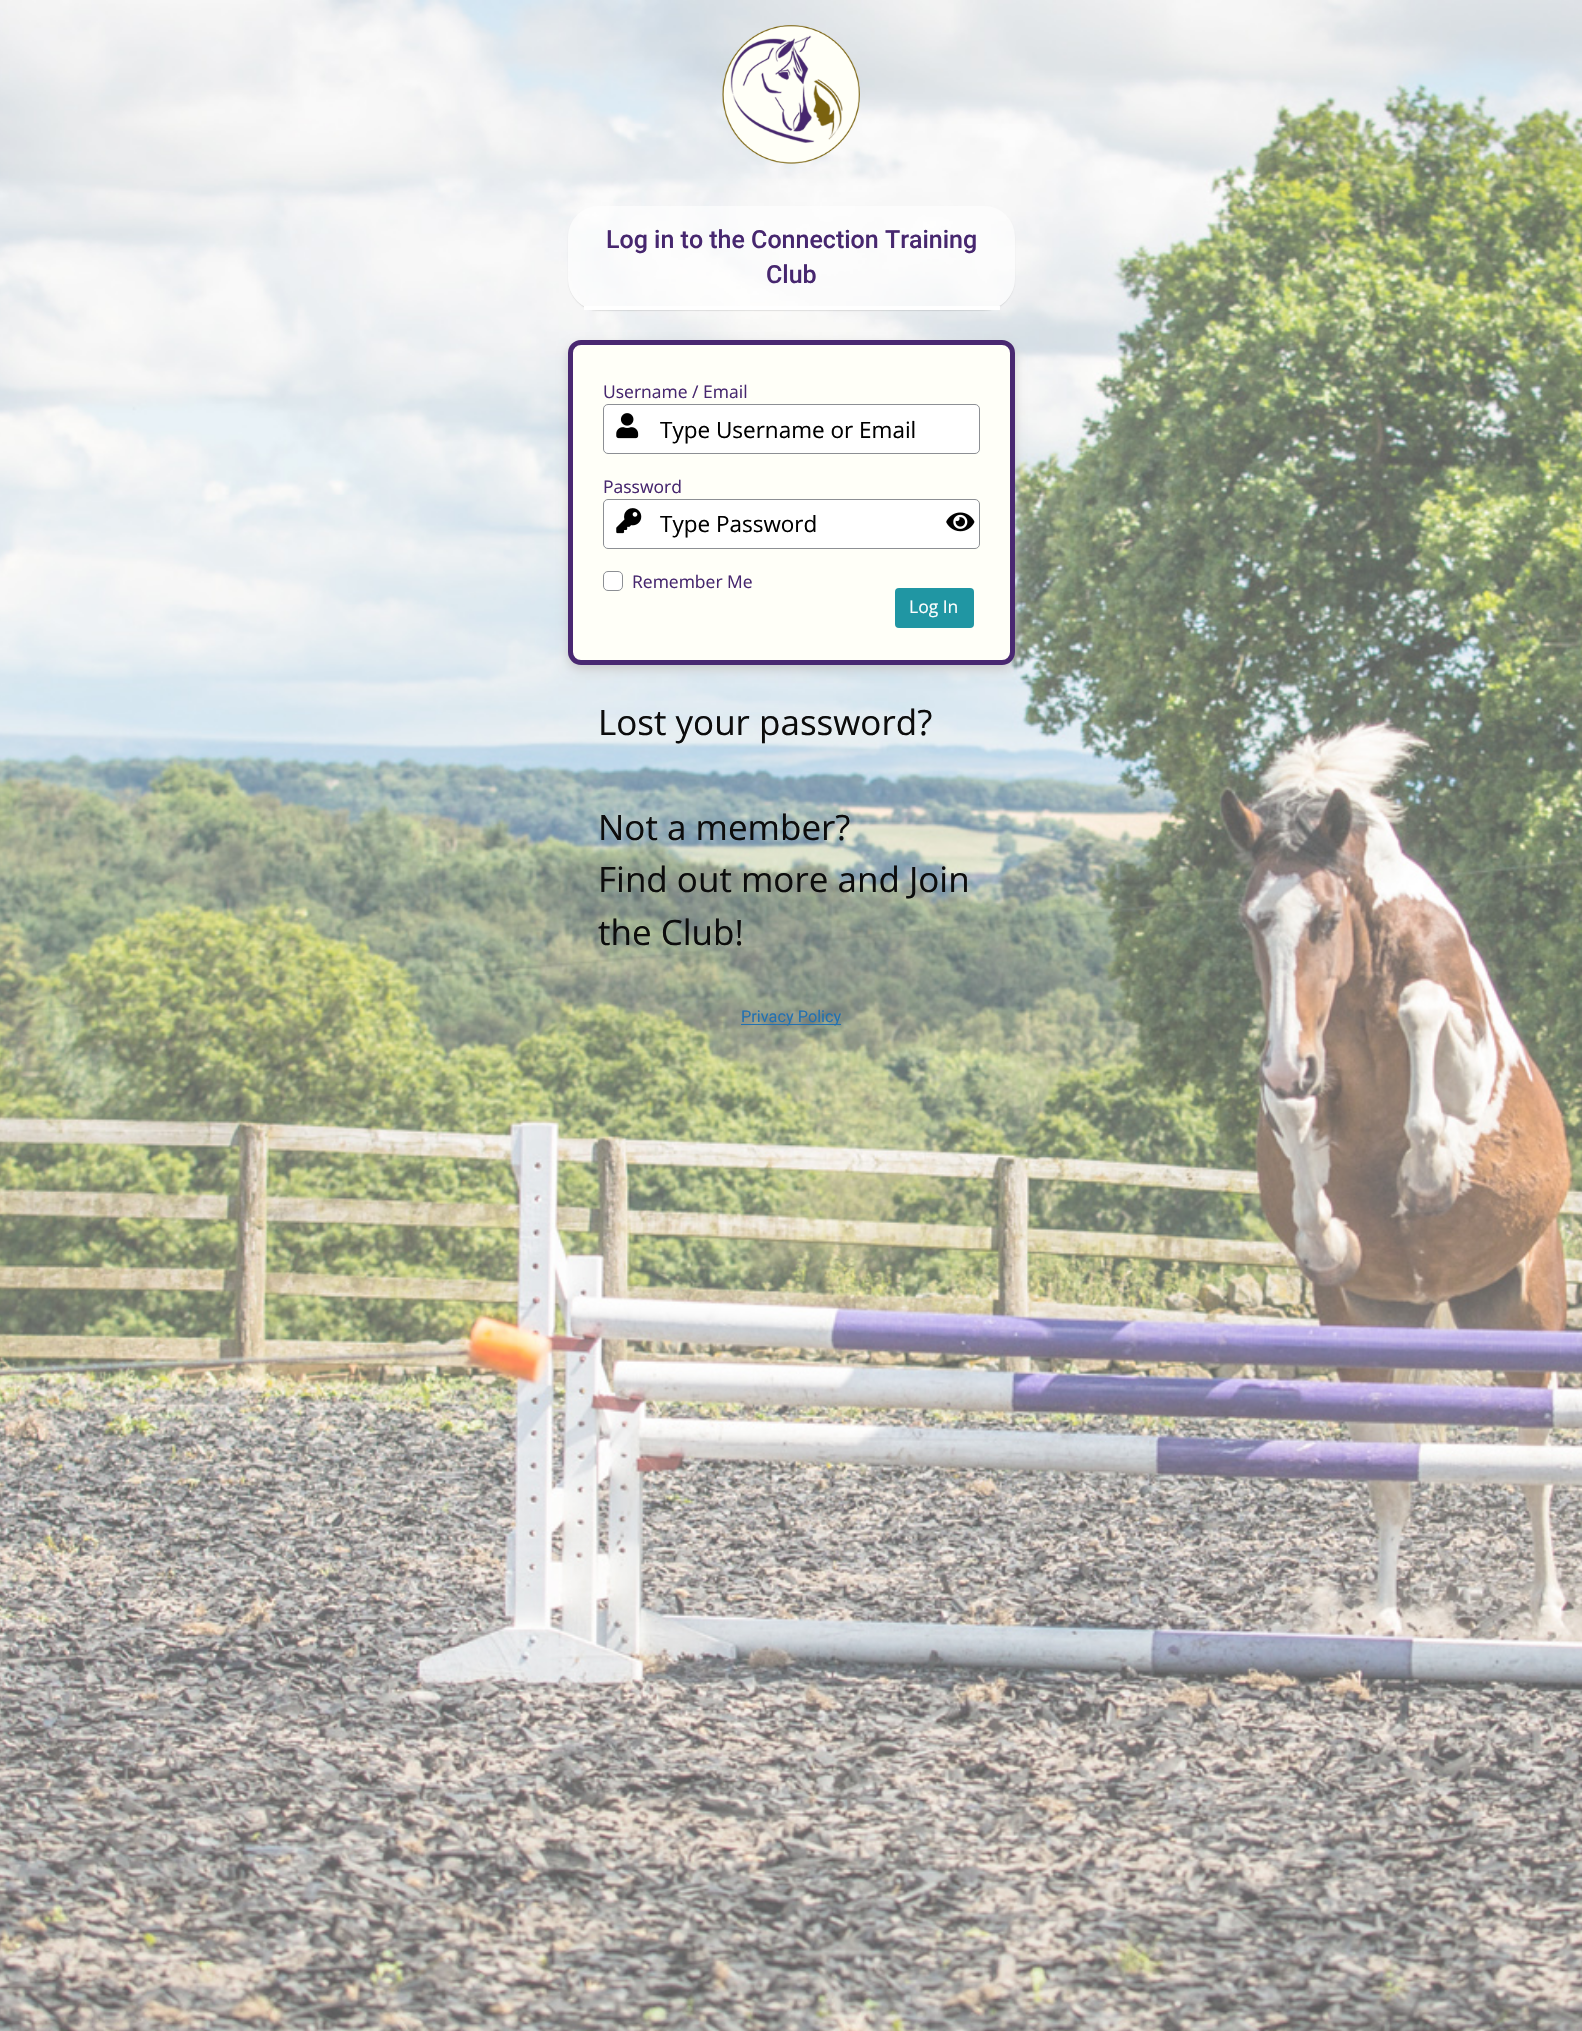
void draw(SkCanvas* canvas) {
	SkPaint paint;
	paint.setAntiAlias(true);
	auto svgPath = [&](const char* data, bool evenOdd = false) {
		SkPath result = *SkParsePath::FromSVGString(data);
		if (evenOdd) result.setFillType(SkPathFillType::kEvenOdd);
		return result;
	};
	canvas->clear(0xffffffff);
	canvas->drawImageRect(SkImages::DeferredFromEncodedData(SkData::MakeFromFileName("img1.png")), SkRect::MakeXYWH(0, 0, 1582, 2031), SkSamplingOptions());
	canvas->drawImageRect(SkImages::DeferredFromEncodedData(SkData::MakeFromFileName("img2.png")), SkRect::MakeXYWH(722, 25, 138, 139), SkSamplingOptions());
	canvas->save();
	canvas->clipPath(svgPath("M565 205H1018V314H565ZM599 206H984C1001 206 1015 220 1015 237V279C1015 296 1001 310 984 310H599C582 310 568 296 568 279V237C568 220 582 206 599 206Z", true), true);
	paint.setColor(0x1a000000);
	paint.setMaskFilter(SkMaskFilter::MakeBlur(kNormal_SkBlurStyle, 0.5));
	canvas->drawRoundRect(SkRect::MakeXYWH(568, 208, 447, 103), 31, 31, paint);
	paint.setMaskFilter(nullptr);
	canvas->restore();
	paint.setColor(0x9effffff);
	canvas->drawRoundRect(SkRect::MakeXYWH(568, 206, 447, 104), 31, 31, paint);
	paint.setColor(0xffffffff);
	canvas->drawRect(SkRect::MakeXYWH(584, 306, 416, 4), paint);
	SkFont f1(fontMgr->matchFamilyStyle("Roboto", SkFontStyle(500, SkFontStyle::kNormal_Width, SkFontStyle::kUpright_Slant)), 25);
	f1.setSubpixel(true);
	paint.setColor(0xff47276f);
	canvas->drawString("Log in to the Connection Training", 606, 248, f1, paint);
	canvas->drawString("Club", 766, 283, f1, paint);
	paint.setColor(0xffc8c8c8);
	paint.setMaskFilter(SkMaskFilter::MakeBlur(kNormal_SkBlurStyle, 6));
	canvas->drawRoundRect(SkRect::MakeXYWH(569, 346, 445, 323), 11, 11, paint);
	paint.setMaskFilter(nullptr);
	paint.setColor(0xfffffff8);
	canvas->drawRoundRect(SkRect::MakeXYWH(570.5, 342.5, 442, 320), 10.5, 10.5, paint);
	paint.setStroke(true);
	paint.setStrokeWidth(5);
	paint.setColor(0xff492871);
	canvas->drawRoundRect(SkRect::MakeXYWH(570.5, 342.5, 442, 320), 10.5, 10.5, paint);
	SkFont f2(fontMgr->matchFamilyStyle("Open Sans", SkFontStyle::Normal()), 17.5);
	f2.setSubpixel(true);
	paint.setStroke(false);
	paint.setColor(0xff47276f);
	canvas->drawString("Username / Email", 603, 398, f2, paint);
	paint.setColor(0xffffffff);
	canvas->drawRoundRect(SkRect::MakeXYWH(603.5, 404.5, 376, 49), 4.5, 4.5, paint);
	paint.setStroke(true);
	paint.setStrokeWidth(1);
	paint.setColor(0xff8c8f94);
	canvas->drawRoundRect(SkRect::MakeXYWH(603.5, 404.5, 376, 49), 4.5, 4.5, paint);
	canvas->drawImageRect(SkImages::DeferredFromEncodedData(SkData::MakeFromFileName("img3.png")), SkRect::MakeXYWH(616, 413, 23, 26), SkSamplingOptions());
	SkFont f3(fontMgr->matchFamilyStyle("Open Sans", SkFontStyle::Normal()), 22.5);
	f3.setSubpixel(true);
	paint.setStroke(false);
	paint.setColor(0xff000000);
	canvas->drawString("Type Username or Email", 660, 438, f3, paint);
	paint.setColor(0xff47276f);
	canvas->drawString("Password", 603, 493, f2, paint);
	paint.setColor(0xffffffff);
	canvas->drawRoundRect(SkRect::MakeXYWH(603.5, 499.5, 376, 49), 4.5, 4.5, paint);
	paint.setStroke(true);
	paint.setColor(0xff8c8f94);
	canvas->drawRoundRect(SkRect::MakeXYWH(603.5, 499.5, 376, 49), 4.5, 4.5, paint);
	canvas->drawImageRect(SkImages::DeferredFromEncodedData(SkData::MakeFromFileName("img4.png")), SkRect::MakeXYWH(616, 508, 26, 26), SkSamplingOptions());
	paint.setStroke(false);
	paint.setColor(0xff000000);
	canvas->drawString("Type Password", 660, 532, f3, paint);
	canvas->drawImageRect(SkImages::DeferredFromEncodedData(SkData::MakeFromFileName("img5.png")), SkRect::MakeXYWH(946, 512, 29, 20), SkSamplingOptions());
	paint.setColor(0xffffffff);
	canvas->drawRoundRect(SkRect::MakeXYWH(603.5, 571.5, 19, 19), 4.5, 4.5, paint);
	paint.setStroke(true);
	paint.setColor(0xff8c8f94);
	canvas->drawRoundRect(SkRect::MakeXYWH(603.5, 571.5, 19, 19), 4.5, 4.5, paint);
	paint.setStroke(false);
	paint.setColor(0xff47276f);
	canvas->drawString("Remember Me", 632, 588, f2, paint);
	paint.setColor(0xff2096a3);
	canvas->drawRoundRect(SkRect::MakeXYWH(895, 588, 79, 40), 4, 4, paint);
	paint.setColor(0xffffffff);
	canvas->drawString("Log In", 909, 613, f2, paint);
	SkFont f4(fontMgr->matchFamilyStyle("Open Sans", SkFontStyle::Normal()), 35);
	f4.setSubpixel(true);
	paint.setColor(0xff0c0c0c);
	canvas->drawString("Lost your password?", 598, 735, f4, paint);
	canvas->drawString("Not a member?", 598, 840, f4, paint);
	canvas->drawString("Find out more and Join", 598, 892, f4, paint);
	canvas->drawString("the Club!", 598, 945, f4, paint);
	paint.setColor(0xff2271b1);
	canvas->drawRect(SkRect::MakeXYWH(741, 1024, 100, 1), paint);
	SkFont f5(fontMgr->matchFamilyStyle("Roboto", SkFontStyle::Normal()), 16.25);
	f5.setSubpixel(true);
	canvas->drawString("Privacy Policy", 741, 1022, f5, paint);
}
